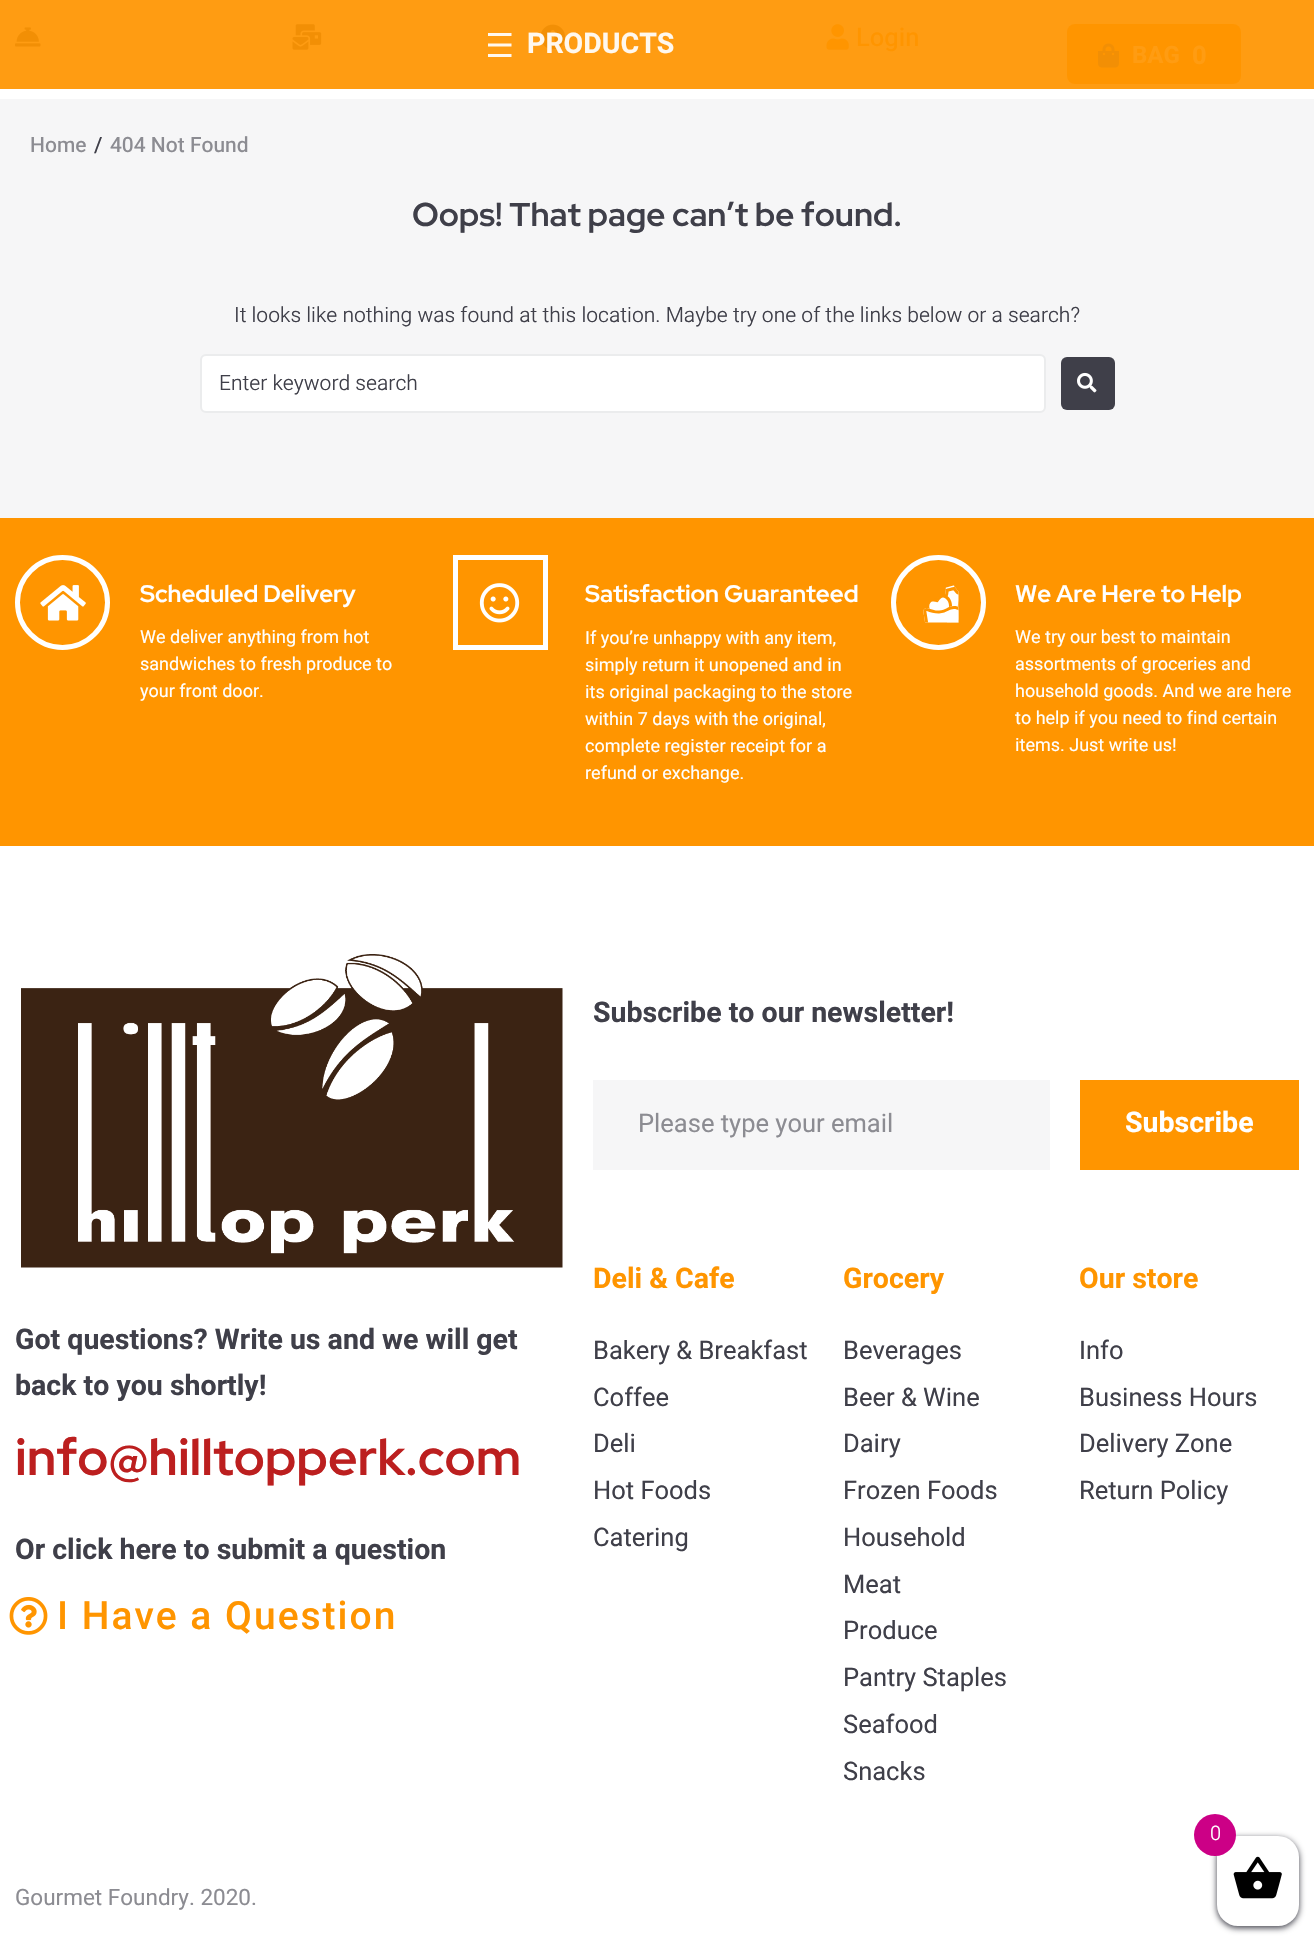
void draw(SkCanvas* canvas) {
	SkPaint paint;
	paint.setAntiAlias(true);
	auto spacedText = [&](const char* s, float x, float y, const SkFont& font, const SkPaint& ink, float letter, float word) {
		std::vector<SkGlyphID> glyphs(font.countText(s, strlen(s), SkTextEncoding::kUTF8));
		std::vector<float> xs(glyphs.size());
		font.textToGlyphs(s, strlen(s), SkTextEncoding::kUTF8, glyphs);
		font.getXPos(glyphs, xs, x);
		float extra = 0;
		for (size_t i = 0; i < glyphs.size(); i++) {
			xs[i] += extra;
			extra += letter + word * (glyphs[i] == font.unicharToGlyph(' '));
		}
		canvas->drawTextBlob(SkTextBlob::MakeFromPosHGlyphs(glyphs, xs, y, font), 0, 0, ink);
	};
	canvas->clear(0xfff6f6f7);
	paint.setColor(0xffff9c12);
	canvas->drawRect(SkRect::MakeXYWH(0, 0, 1314, 89), paint);
	canvas->drawImageRect(SkImages::DeferredFromEncodedData(SkData::MakeFromFileName("img1.png")), SkRect::MakeXYWH(488, 33, 24, 24), SkSamplingOptions());
	canvas->drawImageRect(SkImages::DeferredFromEncodedData(SkData::MakeFromFileName("img4.png")), SkRect::MakeXYWH(540, 24, 26, 26), SkSamplingOptions());
	SkFont f1(fontMgr->matchFamilyStyle("Heebo", SkFontStyle::Bold()), 28.5);
	f1.setSubpixel(true);
	paint.setColor(0xfffff8ee);
	canvas->drawString("PRODUCTS", 527, 53, f1, paint);
	paint.setColor(0xffffffff);
	canvas->drawRect(SkRect::MakeXYWH(0, 89, 1314, 10), paint);
	canvas->drawImageRect(SkImages::DeferredFromEncodedData(SkData::MakeFromFileName("img2.png")), SkRect::MakeXYWH(15, 27, 26, 20), SkSamplingOptions());
	canvas->drawImageRect(SkImages::DeferredFromEncodedData(SkData::MakeFromFileName("img3.png")), SkRect::MakeXYWH(292, 24, 30, 26), SkSamplingOptions());
	canvas->drawImageRect(SkImages::DeferredFromEncodedData(SkData::MakeFromFileName("img5.png")), SkRect::MakeXYWH(826, 24, 23, 26), SkSamplingOptions());
	SkFont f2(fontMgr->matchFamilyStyle("Heebo", SkFontStyle(500, SkFontStyle::kNormal_Width, SkFontStyle::kUpright_Slant)), 25.5);
	f2.setSubpixel(true);
	paint.setColor(0xffff9500);
	canvas->drawString("Login", 856, 46, f2, paint);
	canvas->drawRoundRect(SkRect::MakeXYWH(1067, 24, 174, 60), 8, 8, paint);
	canvas->drawImageRect(SkImages::DeferredFromEncodedData(SkData::MakeFromFileName("img6.png")), SkRect::MakeXYWH(1098, 43, 21, 25), SkSamplingOptions());
	SkFont f3(fontMgr->matchFamilyStyle("Heebo", SkFontStyle::Bold()), 24);
	f3.setSubpixel(true);
	paint.setColor(0xffff9c12);
	canvas->drawString("BAG", 1132, 63, f3, paint);
	SkFont f4(fontMgr->matchFamilyStyle("Heebo", SkFontStyle::Bold()), 25.5);
	f4.setSubpixel(true);
	canvas->drawString("0", 1192, 64, f4, paint);
	SkFont f5(fontMgr->matchFamilyStyle("Heebo", SkFontStyle(500, SkFontStyle::kNormal_Width, SkFontStyle::kUpright_Slant)), 21);
	f5.setSubpixel(true);
	paint.setColor(0xff8c8c92);
	canvas->drawString("Home", 30, 152, f5, paint);
	paint.setColor(0xff3f3f49);
	canvas->drawString("/", 94, 152, f5, paint);
	paint.setColor(0xff8c8c92);
	canvas->drawString("404 Not Found", 110, 152, f5, paint);
	SkFont f6(fontMgr->matchFamilyStyle("Red Hat Display", SkFontStyle::Bold()), 33);
	f6.setSubpixel(true);
	paint.setColor(0xff3f3f49);
	canvas->drawString("Oops! That page can’t be found.", 412, 226, f6, paint);
	SkFont f7(fontMgr->matchFamilyStyle("Heebo", SkFontStyle(300, SkFontStyle::kNormal_Width, SkFontStyle::kUpright_Slant)), 21);
	f7.setSubpixel(true);
	canvas->drawString("It looks like nothing was found at this location. Maybe try one of the links below or a search?", 234, 322, f7, paint);
	paint.setColor(0xffffffff);
	canvas->drawRoundRect(SkRect::MakeXYWH(201, 355, 844, 57), 5, 5, paint);
	paint.setStroke(true);
	paint.setStrokeWidth(2);
	paint.setColor(0xffebeced);
	canvas->drawRoundRect(SkRect::MakeXYWH(201, 355, 844, 57), 5, 5, paint);
	paint.setStroke(false);
	paint.setColor(0xff3f3f49);
	canvas->drawString("Enter keyword search", 219, 390, f7, paint);
	canvas->drawRoundRect(SkRect::MakeXYWH(1061, 357, 54, 53), 6, 6, paint);
	canvas->drawImageRect(SkImages::DeferredFromEncodedData(SkData::MakeFromFileName("img7.png")), SkRect::MakeXYWH(1077, 372, 20, 21), SkSamplingOptions());
	paint.setColor(0xffff9500);
	canvas->drawRect(SkRect::MakeXYWH(0, 518, 1314, 328), paint);
	paint.setStroke(true);
	paint.setStrokeWidth(5);
	paint.setColor(0xffffffff);
	canvas->drawCircle(62.5, 602.5, 45, paint);
	canvas->drawImageRect(SkImages::DeferredFromEncodedData(SkData::MakeFromFileName("img8.png")), SkRect::MakeXYWH(40, 585, 46, 36), SkSamplingOptions());
	SkFont f8(fontMgr->matchFamilyStyle("Red Hat Display", SkFontStyle::Bold()), 24);
	f8.setSubpixel(true);
	paint.setStroke(false);
	canvas->drawString("Scheduled Delivery", 140, 602, f8, paint);
	SkFont f9(fontMgr->matchFamilyStyle("Heebo", SkFontStyle::Normal()), 18);
	f9.setSubpixel(true);
	canvas->drawString("We deliver anything from hot", 140, 643, f9, paint);
	canvas->drawString("sandwiches to fresh produce to", 140, 670, f9, paint);
	canvas->drawString("your front door.", 140, 697, f9, paint);
	paint.setStroke(true);
	canvas->drawRect(SkRect::MakeXYWH(455.5, 557.5, 90, 90), paint);
	canvas->drawImageRect(SkImages::DeferredFromEncodedData(SkData::MakeFromFileName("img9.png")), SkRect::MakeXYWH(479, 583, 41, 40), SkSamplingOptions());
	paint.setStroke(false);
	canvas->drawString("Satisfaction Guaranteed", 585, 602, f8, paint);
	canvas->drawString("If you’re unhappy with any item,", 585, 644, f9, paint);
	canvas->drawString("simply return it unopened and in", 585, 671, f9, paint);
	canvas->drawString("its original packaging to the store", 585, 698, f9, paint);
	canvas->drawString("within 7 days with the original,", 585, 725, f9, paint);
	canvas->drawString("complete register receipt for a", 585, 752, f9, paint);
	canvas->drawString("refund or exchange.", 585, 779, f9, paint);
	paint.setStroke(true);
	canvas->drawCircle(938.5, 602.5, 45, paint);
	canvas->drawImageRect(SkImages::DeferredFromEncodedData(SkData::MakeFromFileName("img10.png")), SkRect::MakeXYWH(923, 585, 36, 38), SkSamplingOptions());
	paint.setStroke(false);
	canvas->drawString("We Are Here to Help", 1015, 602, f8, paint);
	canvas->drawString("We try our best to maintain", 1015, 643, f9, paint);
	canvas->drawString("assortments of groceries and", 1015, 670, f9, paint);
	canvas->drawString("household goods. And we are here", 1015, 697, f9, paint);
	canvas->drawString("to help if you need to find certain", 1015, 724, f9, paint);
	canvas->drawString("items. Just write us!", 1015, 751, f9, paint);
	canvas->drawRect(SkRect::MakeXYWH(0, 846, 1314, 1113), paint);
	canvas->drawImageRect(SkImages::DeferredFromEncodedData(SkData::MakeFromFileName("img11.png")), SkRect::MakeXYWH(21, 954, 542, 314), SkSamplingOptions());
	paint.setColor(0xff3f3f49);
	canvas->drawString("Got questions? Write us and we will get", 15, 1349, f1, paint);
	canvas->drawString("back to you shortly!", 15, 1395, f1, paint);
	SkFont f10(fontMgr->matchFamilyStyle("Red Hat Display", SkFontStyle::Bold()), 51);
	f10.setSubpixel(true);
	paint.setColor(0xffbc1f1f);
	canvas->drawString("info@hilltopperk.com", 15, 1475, f10, paint);
	paint.setColor(0xff3f3f49);
	canvas->drawString("Or click here to submit a question", 15, 1559, f1, paint);
	canvas->drawImageRect(SkImages::DeferredFromEncodedData(SkData::MakeFromFileName("img12.png")), SkRect::MakeXYWH(9, 1597, 39, 38), SkSamplingOptions());
	SkFont f11(fontMgr->matchFamilyStyle("Roboto", SkFontStyle(500, SkFontStyle::kNormal_Width, SkFontStyle::kUpright_Slant)), 39);
	f11.setSubpixel(true);
	paint.setColor(0xffff9500);
	spacedText("I Have a Question", 57, 1629, f11, paint, 2, 0);
	paint.setColor(0xff3f3f49);
	canvas->drawString("Subscribe to our newsletter!", 593, 1022, f1, paint);
	paint.setColor(0xfff6f6f7);
	canvas->drawRect(SkRect::MakeXYWH(593, 1080, 457, 90), paint);
	SkFont f12(fontMgr->matchFamilyStyle("Heebo", SkFontStyle::Normal()), 25.5);
	f12.setSubpixel(true);
	paint.setColor(0xff8c8c92);
	canvas->drawString("Please type your email", 638, 1132, f12, paint);
	paint.setColor(0xffff9500);
	canvas->drawRect(SkRect::MakeXYWH(1080, 1080, 219, 90), paint);
	paint.setColor(0xffffffff);
	canvas->drawString("Subscribe", 1125, 1132, f1, paint);
	paint.setColor(0xffff9500);
	canvas->drawString("Deli & Cafe", 593, 1288, f1, paint);
	paint.setColor(0xff3f3f49);
	canvas->drawString("Bakery & Breakfast", 593, 1359, f12, paint);
	canvas->drawString("Coffee", 593, 1406, f12, paint);
	canvas->drawString("Deli", 593, 1452, f12, paint);
	canvas->drawString("Hot Foods", 593, 1499, f12, paint);
	canvas->drawString("Catering", 593, 1546, f12, paint);
	paint.setColor(0xffff9500);
	canvas->drawString("Grocery", 843, 1288, f1, paint);
	paint.setColor(0xff3f3f49);
	canvas->drawString("Beverages", 843, 1359, f12, paint);
	canvas->drawString("Beer & Wine", 843, 1406, f12, paint);
	canvas->drawString("Dairy", 843, 1452, f12, paint);
	canvas->drawString("Frozen Foods", 843, 1499, f12, paint);
	canvas->drawString("Household", 843, 1546, f12, paint);
	canvas->drawString("Meat", 843, 1593, f12, paint);
	canvas->drawString("Produce", 843, 1639, f12, paint);
	canvas->drawString("Pantry Staples", 843, 1686, f12, paint);
	canvas->drawString("Seafood", 843, 1733, f12, paint);
	canvas->drawString("Snacks", 843, 1780, f12, paint);
	paint.setColor(0xffff9500);
	canvas->drawString("Our store", 1079, 1288, f1, paint);
	paint.setColor(0xff3f3f49);
	canvas->drawString("Info", 1079, 1359, f12, paint);
	canvas->drawString("Business Hours", 1079, 1406, f12, paint);
	canvas->drawString("Delivery Zone", 1079, 1452, f12, paint);
	canvas->drawString("Return Policy", 1079, 1499, f12, paint);
	SkFont f13(fontMgr->matchFamilyStyle("Heebo", SkFontStyle::Normal()), 22.5);
	f13.setSubpixel(true);
	paint.setColor(0xff8c8c92);
	canvas->drawString("Gourmet Foundry. 2020.", 15, 1905, f13, paint);
	paint.setColor(0xff3f3f49);
	paint.setMaskFilter(SkMaskFilter::MakeBlur(kNormal_SkBlurStyle, 3));
	canvas->drawRoundRect(SkRect::MakeXYWH(1217, 1838, 82, 90), 21, 21, paint);
	paint.setMaskFilter(nullptr);
	paint.setColor(0xffffffff);
	canvas->drawRoundRect(SkRect::MakeXYWH(1217, 1836, 82, 90), 21, 21, paint);
	paint.setColor(0xffcc0086);
	canvas->drawCircle(1215, 1835, 21, paint);
	SkFont f14(fontMgr->matchFamilyStyle("Heebo", SkFontStyle(300, SkFontStyle::kNormal_Width, SkFontStyle::kUpright_Slant)), 20);
	f14.setSubpixel(true);
	paint.setColor(0xffffffff);
	canvas->drawString("0", 1210, 1840, f14, paint);
	canvas->drawImageRect(SkImages::DeferredFromEncodedData(SkData::MakeFromFileName("img13.png")), SkRect::MakeXYWH(1233, 1856, 49, 43), SkSamplingOptions());
}
